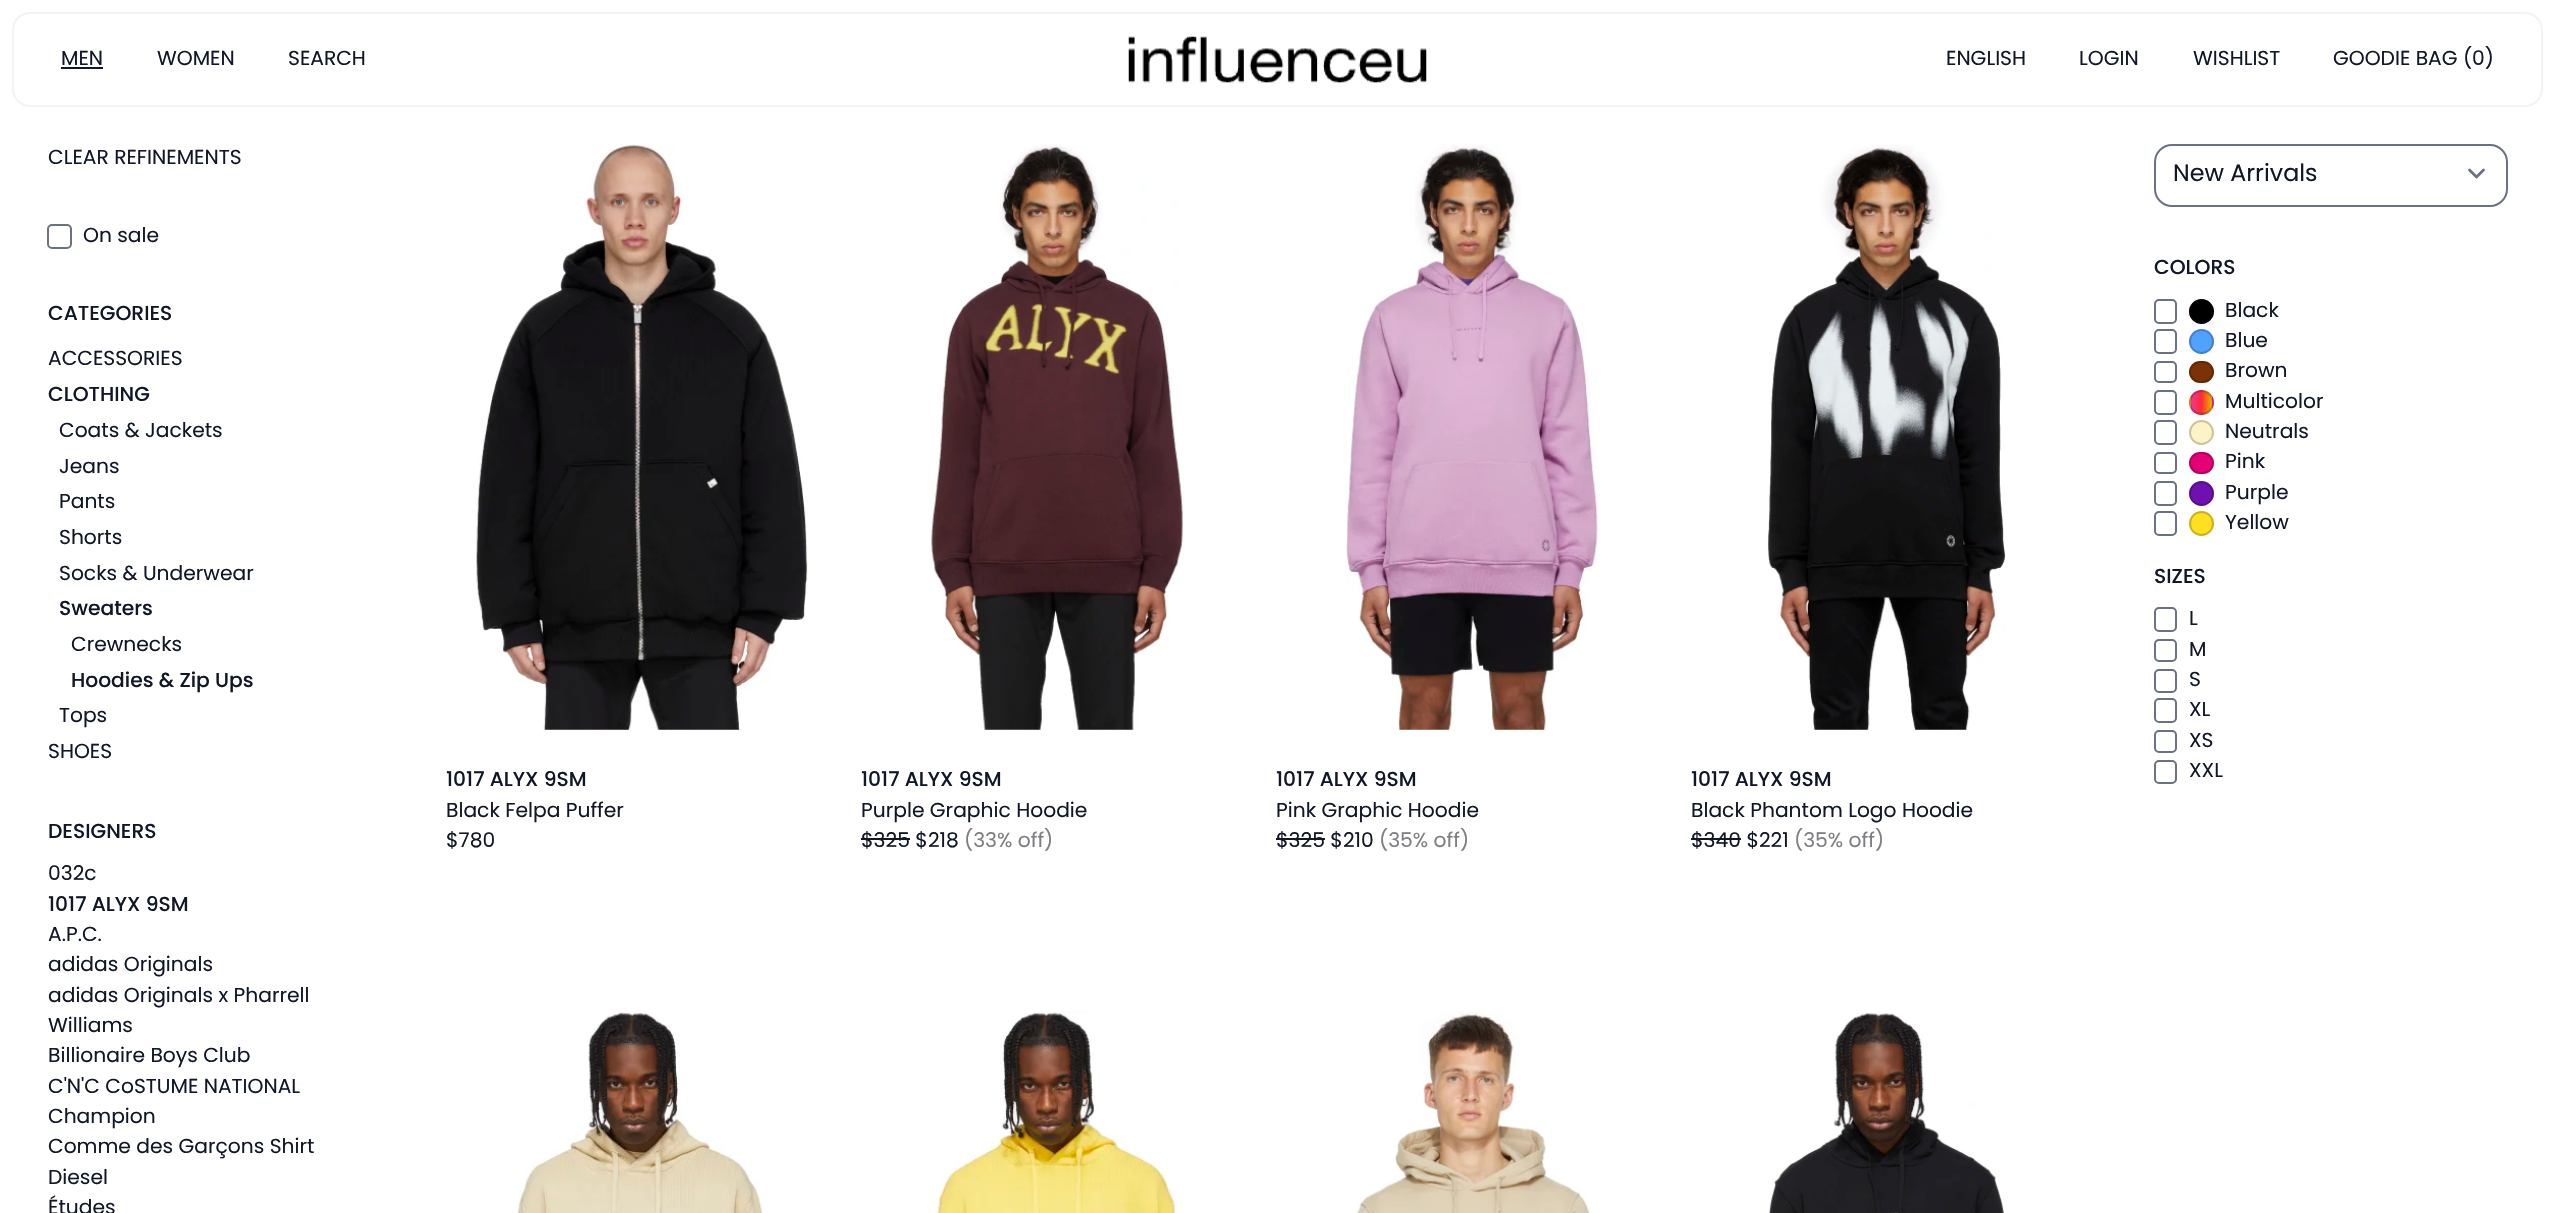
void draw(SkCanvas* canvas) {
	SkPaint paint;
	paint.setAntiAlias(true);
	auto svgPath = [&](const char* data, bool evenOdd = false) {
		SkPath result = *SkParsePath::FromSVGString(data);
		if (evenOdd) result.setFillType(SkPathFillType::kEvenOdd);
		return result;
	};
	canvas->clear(0xffffffff);
	paint.setStroke(true);
	paint.setStrokeWidth(2);
	paint.setColor(0xfff3f3f4);
	canvas->drawRoundRect(SkRect::MakeXYWH(13, 13, 2529, 93), 17, 17, paint);
	SkFont f1(fontMgr->matchFamilyStyle("Poppins", SkFontStyle::Normal()), 20.25);
	f1.setSubpixel(true);
	paint.setStroke(false);
	paint.setColor(0xff101828);
	canvas->drawString("MEN", 61, 65, f1, paint);
	canvas->drawRect(SkRect::MakeXYWH(61, 67, 42, 2), paint);
	canvas->drawString("WOMEN", 157, 65, f1, paint);
	canvas->drawString("SEARCH", 288, 65, f1, paint);
	canvas->drawImageRect(SkImages::DeferredFromEncodedData(SkData::MakeFromFileName("img1.png")), SkRect::MakeXYWH(1128, 36, 299, 47), SkSamplingOptions());
	canvas->drawString("ENGLISH", 1946, 65, f1, paint);
	canvas->drawString("LOGIN", 2079, 65, f1, paint);
	canvas->drawString("WISHLIST", 2193, 65, f1, paint);
	canvas->drawString("GOODIE BAG (0)", 2333, 65, f1, paint);
	canvas->drawString("CLEAR REFINEMENTS", 48, 164, f1, paint);
	paint.setStroke(true);
	paint.setColor(0xff6a7282);
	canvas->drawRoundRect(SkRect::MakeXYWH(48, 225, 23, 23), 4, 4, paint);
	paint.setStroke(false);
	paint.setColor(0xff101828);
	canvas->drawString("On sale", 83, 242, f1, paint);
	SkFont f2(fontMgr->matchFamilyStyle("Poppins", SkFontStyle(500, SkFontStyle::kNormal_Width, SkFontStyle::kUpright_Slant)), 20.25);
	f2.setSubpixel(true);
	canvas->drawString("CATEGORIES", 48, 320, f2, paint);
	canvas->drawString("ACCESSORIES", 48, 365, f1, paint);
	canvas->drawString("CLOTHING", 48, 401, f2, paint);
	canvas->drawString("Coats & Jackets", 59, 437, f1, paint);
	canvas->drawString("Jeans", 59, 473, f1, paint);
	canvas->drawString("Pants", 59, 508, f1, paint);
	canvas->drawString("Shorts", 59, 544, f1, paint);
	canvas->drawString("Socks & Underwear", 59, 580, f1, paint);
	canvas->drawString("Sweaters", 59, 615, f2, paint);
	canvas->drawString("Crewnecks", 71, 651, f1, paint);
	canvas->drawString("Hoodies & Zip Ups", 71, 687, f2, paint);
	canvas->drawString("Tops", 59, 722, f1, paint);
	canvas->drawString("SHOES", 48, 758, f1, paint);
	canvas->drawString("DESIGNERS", 48, 838, f2, paint);
	canvas->drawString("032c", 48, 880, f1, paint);
	canvas->drawString("1017 ALYX 9SM", 48, 911, f2, paint);
	canvas->drawString("A.P.C.", 48, 941, f1, paint);
	canvas->drawString("adidas Originals", 48, 971, f1, paint);
	canvas->drawString("adidas Originals x Pharrell", 48, 1002, f1, paint);
	canvas->drawString("Williams", 48, 1032, f1, paint);
	canvas->drawString("Billionaire Boys Club", 48, 1062, f1, paint);
	canvas->drawString("C'N'C CoSTUME NATIONAL", 48, 1093, f1, paint);
	canvas->drawString("Champion", 48, 1123, f1, paint);
	canvas->drawString("Comme des Garçons Shirt", 48, 1153, f1, paint);
	canvas->drawString("Diesel", 48, 1184, f1, paint);
	canvas->drawString("Études", 48, 1214, f1, paint);
	paint.setStroke(true);
	paint.setStrokeWidth(2.7);
	paint.setStrokeCap(SkPaint::kRound_Cap);
	paint.setStrokeJoin(SkPaint::kRound_Join);
	paint.setColor(0xff6a7282);
	canvas->drawPath(svgPath("M2469.5 170L2476.5 177L2483.5 170"), paint);
	paint.setStrokeWidth(2);
	paint.setStrokeCap(SkPaint::kButt_Cap);
	paint.setStrokeJoin(SkPaint::kMiter_Join);
	canvas->drawRoundRect(SkRect::MakeXYWH(2155, 145, 352, 61), 17, 17, paint);
	SkFont f3(fontMgr->matchFamilyStyle("Poppins", SkFontStyle::Normal()), 23.75);
	f3.setSubpixel(true);
	paint.setStroke(false);
	paint.setColor(0xff101828);
	canvas->drawString("New Arrivals", 2173, 181, f3, paint);
	canvas->drawString("COLORS", 2154, 274, f2, paint);
	paint.setStroke(true);
	paint.setColor(0xff6a7282);
	canvas->drawRoundRect(SkRect::MakeXYWH(2155, 300, 21, 23), 4, 4, paint);
	paint.setStroke(false);
	paint.setColor(0xff000000);
	canvas->drawCircle(2201.5, 311.5, 12.5, paint);
	paint.setStroke(true);
	paint.setColor(0x33000000);
	canvas->drawCircle(2201.5, 311.5, 11.5, paint);
	paint.setStroke(false);
	paint.setColor(0xff101828);
	canvas->drawString("Black", 2225, 317, f1, paint);
	paint.setStroke(true);
	paint.setColor(0xff6a7282);
	canvas->drawRoundRect(SkRect::MakeXYWH(2155, 330, 21, 23), 4, 4, paint);
	paint.setStroke(false);
	paint.setColor(0xff51a2ff);
	canvas->drawCircle(2201.5, 341.5, 12.5, paint);
	paint.setStroke(true);
	paint.setColor(0x33000000);
	canvas->drawCircle(2201.5, 341.5, 11.5, paint);
	paint.setStroke(false);
	paint.setColor(0xff101828);
	canvas->drawString("Blue", 2225, 347, f1, paint);
	paint.setStroke(true);
	paint.setColor(0xff6a7282);
	canvas->drawRoundRect(SkRect::MakeXYWH(2155, 362, 21, 20), 4, 4, paint);
	paint.setStroke(false);
	paint.setColor(0xff7b3306);
	canvas->drawRoundRect(SkRect::MakeXYWH(2189, 361, 25, 22), 11, 11, paint);
	paint.setStroke(true);
	paint.setColor(0x33000000);
	canvas->drawRoundRect(SkRect::MakeXYWH(2190, 362, 23, 20), 10, 10, paint);
	paint.setStroke(false);
	paint.setColor(0xff101828);
	canvas->drawString("Brown", 2225, 377, f1, paint);
	paint.setStroke(true);
	paint.setColor(0xff6a7282);
	canvas->drawRoundRect(SkRect::MakeXYWH(2155, 391, 21, 23), 4, 4, paint);
	canvas->save();
	canvas->clipPath(svgPath("M2201.5 390C2208.5 390 2214 395.5 2214 402.5C2214 409.5 2208.5 415 2201.5 415C2194.5 415 2189 409.5 2189 402.5C2189 395.5 2194.5 390 2201.5 390Z"), true);
	paint.setStroke(false);
	{
		const SkColor colors[] = {0xfff6339a, 0xfffb2c36, 0xfff0b100};
		const float stops[] = {0, 0.5, 1};
		const SkPoint ends[] = {{2170, 403}, {2191, 403}};
		paint.setShader(SkGradientShader::MakeLinear(ends, colors, stops, 3, SkTileMode::kClamp));
		paint.setAlpha(255);
	}
	canvas->drawRect(SkRect::MakeXYWH(2189, 390, 2, 25), paint);
	{
		const SkColor colors[] = {0xfff6339a, 0xfffb2c36, 0xfff0b100};
		const float stops[] = {0, 0.5, 1};
		const SkPoint ends[] = {{2191, 403}, {2212, 403}};
		paint.setShader(SkGradientShader::MakeLinear(ends, colors, stops, 3, SkTileMode::kClamp));
		paint.setAlpha(255);
	}
	canvas->drawRect(SkRect::MakeXYWH(2191, 390, 21, 25), paint);
	{
		const SkColor colors[] = {0xfff6339a, 0xfffb2c36, 0xfff0b100};
		const float stops[] = {0, 0.5, 1};
		const SkPoint ends[] = {{2212, 403}, {2233, 403}};
		paint.setShader(SkGradientShader::MakeLinear(ends, colors, stops, 3, SkTileMode::kClamp));
		paint.setAlpha(255);
	}
	canvas->drawRect(SkRect::MakeXYWH(2212, 390, 2, 25), paint);
	canvas->restore();
	paint.setStroke(true);
	paint.setShader(nullptr);
	paint.setColor(0x33000000);
	canvas->drawCircle(2201.5, 402.5, 11.5, paint);
	paint.setStroke(false);
	paint.setColor(0xff101828);
	canvas->drawString("Multicolor", 2225, 408, f1, paint);
	paint.setStroke(true);
	paint.setColor(0xff6a7282);
	canvas->drawRoundRect(SkRect::MakeXYWH(2155, 421, 21, 23), 4, 4, paint);
	paint.setStroke(false);
	paint.setColor(0xfffef3c6);
	canvas->drawCircle(2201.5, 432.5, 12.5, paint);
	paint.setStroke(true);
	paint.setColor(0x33000000);
	canvas->drawCircle(2201.5, 432.5, 11.5, paint);
	paint.setStroke(false);
	paint.setColor(0xff101828);
	canvas->drawString("Neutrals", 2225, 438, f1, paint);
	paint.setStroke(true);
	paint.setColor(0xff6a7282);
	canvas->drawRoundRect(SkRect::MakeXYWH(2155, 453, 21, 20), 4, 4, paint);
	paint.setStroke(false);
	paint.setColor(0xffe60076);
	canvas->drawRoundRect(SkRect::MakeXYWH(2189, 452, 25, 22), 11, 11, paint);
	paint.setStroke(true);
	paint.setColor(0x33000000);
	canvas->drawRoundRect(SkRect::MakeXYWH(2190, 453, 23, 20), 10, 10, paint);
	paint.setStroke(false);
	paint.setColor(0xff101828);
	canvas->drawString("Pink", 2225, 468, f1, paint);
	paint.setStroke(true);
	paint.setColor(0xff6a7282);
	canvas->drawRoundRect(SkRect::MakeXYWH(2155, 482, 21, 23), 4, 4, paint);
	paint.setStroke(false);
	paint.setColor(0xff6e11b0);
	canvas->drawCircle(2201.5, 493.5, 12.5, paint);
	paint.setStroke(true);
	paint.setColor(0x33000000);
	canvas->drawCircle(2201.5, 493.5, 11.5, paint);
	paint.setStroke(false);
	paint.setColor(0xff101828);
	canvas->drawString("Purple", 2225, 499, f1, paint);
	paint.setStroke(true);
	paint.setColor(0xff6a7282);
	canvas->drawRoundRect(SkRect::MakeXYWH(2155, 512, 21, 23), 4, 4, paint);
	paint.setStroke(false);
	paint.setColor(0xffffdf20);
	canvas->drawCircle(2201.5, 523.5, 12.5, paint);
	paint.setStroke(true);
	paint.setColor(0x33000000);
	canvas->drawCircle(2201.5, 523.5, 11.5, paint);
	paint.setStroke(false);
	paint.setColor(0xff101828);
	canvas->drawString("Yellow", 2225, 529, f1, paint);
	canvas->drawString("SIZES", 2154, 583, f2, paint);
	paint.setStroke(true);
	paint.setColor(0xff6a7282);
	canvas->drawRoundRect(SkRect::MakeXYWH(2155, 608, 21, 23), 4, 4, paint);
	paint.setStroke(false);
	paint.setColor(0xff101828);
	canvas->drawString("L", 2189, 625, f1, paint);
	paint.setStroke(true);
	paint.setColor(0xff6a7282);
	canvas->drawRoundRect(SkRect::MakeXYWH(2155, 640, 21, 21), 4, 4, paint);
	paint.setStroke(false);
	paint.setColor(0xff101828);
	canvas->drawString("M", 2189, 656, f1, paint);
	paint.setStroke(true);
	paint.setColor(0xff6a7282);
	canvas->drawRoundRect(SkRect::MakeXYWH(2155, 670, 21, 22), 4, 4, paint);
	paint.setStroke(false);
	paint.setColor(0xff101828);
	canvas->drawString("S", 2189, 686, f1, paint);
	paint.setStroke(true);
	paint.setColor(0xff6a7282);
	canvas->drawRoundRect(SkRect::MakeXYWH(2155, 699, 21, 23), 4, 4, paint);
	paint.setStroke(false);
	paint.setColor(0xff101828);
	canvas->drawString("XL", 2189, 716, f1, paint);
	paint.setStroke(true);
	paint.setColor(0xff6a7282);
	canvas->drawRoundRect(SkRect::MakeXYWH(2155, 731, 21, 21), 4, 4, paint);
	paint.setStroke(false);
	paint.setColor(0xff101828);
	canvas->drawString("XS", 2189, 747, f1, paint);
	paint.setStroke(true);
	paint.setColor(0xff6a7282);
	canvas->drawRoundRect(SkRect::MakeXYWH(2155, 761, 21, 22), 4, 4, paint);
	paint.setStroke(false);
	paint.setColor(0xff101828);
	canvas->drawString("XXL", 2189, 777, f1, paint);
	canvas->drawImageRect(SkImages::DeferredFromEncodedData(SkData::MakeFromFileName("img2.png")), SkRect::MakeXYWH(476, 143, 332, 587), SkSamplingOptions());
	canvas->drawString("1017 ALYX 9SM", 446, 786, f2, paint);
	canvas->drawString("Black Felpa Puffer", 446, 817, f1, paint);
	canvas->drawString("$780", 446, 847, f1, paint);
	canvas->drawImageRect(SkImages::DeferredFromEncodedData(SkData::MakeFromFileName("img3.png")), SkRect::MakeXYWH(931, 144, 253, 586), SkSamplingOptions());
	canvas->drawString("1017 ALYX 9SM", 861, 786, f2, paint);
	canvas->drawString("Purple Graphic Hoodie", 861, 817, f1, paint);
	canvas->drawString("$325 $218", 861, 847, f1, paint);
	canvas->drawRect(SkRect::MakeXYWH(861, 838, 49, 2), paint);
	paint.setColor(0xff7f7f83);
	canvas->drawString("(33% off)", 964, 847, f1, paint);
	canvas->drawImageRect(SkImages::DeferredFromEncodedData(SkData::MakeFromFileName("img4.png")), SkRect::MakeXYWH(1345, 144, 255, 586), SkSamplingOptions());
	paint.setColor(0xff101828);
	canvas->drawString("1017 ALYX 9SM", 1276, 786, f2, paint);
	canvas->drawString("Pink Graphic Hoodie", 1276, 817, f1, paint);
	canvas->drawString("$325 $210", 1276, 847, f1, paint);
	canvas->drawRect(SkRect::MakeXYWH(1276, 838, 49, 2), paint);
	paint.setColor(0xff7f7f83);
	canvas->drawString("(35% off)", 1379, 847, f1, paint);
	canvas->drawImageRect(SkImages::DeferredFromEncodedData(SkData::MakeFromFileName("img5.png")), SkRect::MakeXYWH(1767, 144, 239, 586), SkSamplingOptions());
	paint.setColor(0xff101828);
	canvas->drawString("1017 ALYX 9SM", 1691, 786, f2, paint);
	canvas->drawString("Black Phantom Logo Hoodie", 1691, 817, f1, paint);
	canvas->drawString("$340 $221", 1691, 847, f1, paint);
	canvas->drawRect(SkRect::MakeXYWH(1691, 838, 50, 2), paint);
	paint.setColor(0xff7f7f83);
	canvas->drawString("(35% off)", 1794, 847, f1, paint);
	canvas->drawImageRect(SkImages::DeferredFromEncodedData(SkData::MakeFromFileName("img6.png")), SkRect::MakeXYWH(515, 1011, 248, 202), SkSamplingOptions());
	canvas->drawImageRect(SkImages::DeferredFromEncodedData(SkData::MakeFromFileName("img7.png")), SkRect::MakeXYWH(935, 1011, 244, 202), SkSamplingOptions());
	canvas->drawImageRect(SkImages::DeferredFromEncodedData(SkData::MakeFromFileName("img8.png")), SkRect::MakeXYWH(1357, 1011, 234, 202), SkSamplingOptions());
	canvas->drawImageRect(SkImages::DeferredFromEncodedData(SkData::MakeFromFileName("img9.png")), SkRect::MakeXYWH(1769, 1012, 235, 201), SkSamplingOptions());
}
